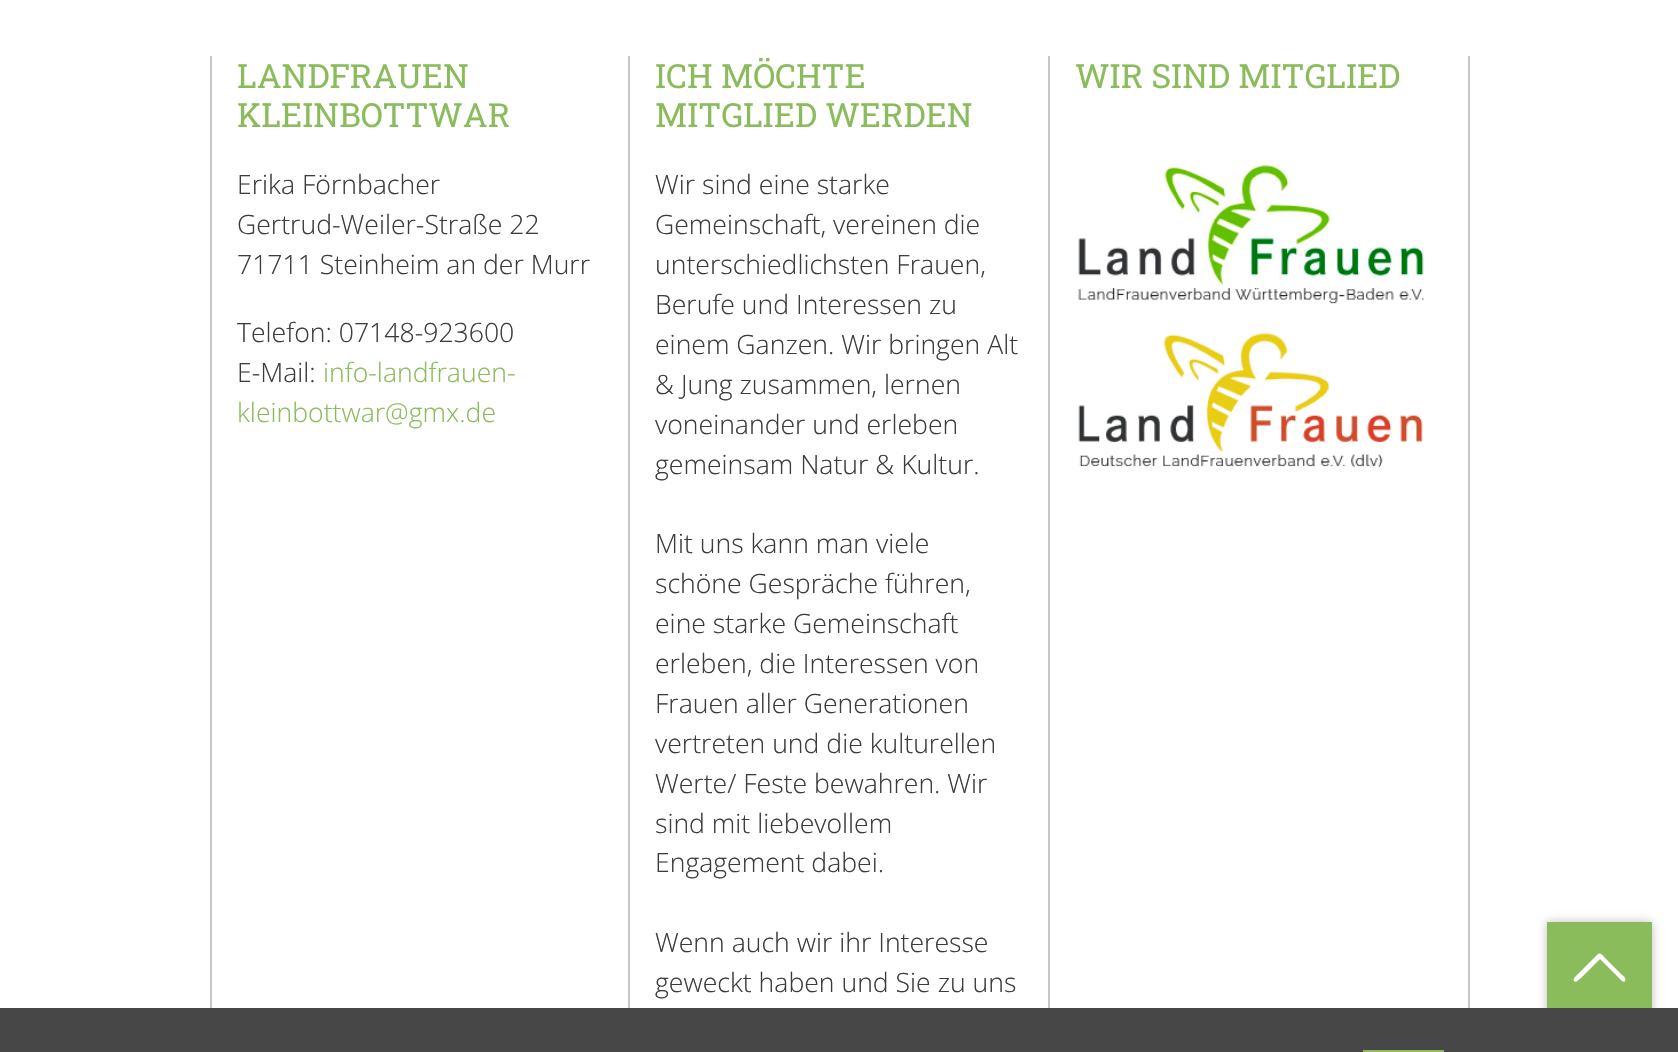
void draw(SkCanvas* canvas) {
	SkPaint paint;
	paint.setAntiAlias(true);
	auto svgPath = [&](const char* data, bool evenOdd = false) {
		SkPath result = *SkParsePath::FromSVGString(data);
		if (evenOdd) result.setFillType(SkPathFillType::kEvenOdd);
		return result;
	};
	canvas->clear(0xffffffff);
	paint.setColor(0xffc6c6c6);
	canvas->drawRect(SkRect::MakeXYWH(628, 56, 2, 952), paint);
	canvas->drawRect(SkRect::MakeXYWH(210, 56, 2, 952), paint);
	SkFont f1(fontMgr->matchFamilyStyle("Roboto Slab", SkFontStyle::Normal()), 33.25);
	f1.setSubpixel(true);
	paint.setColor(0xff8bbc5b);
	canvas->drawString("LANDFRAUEN", 237, 88, f1, paint);
	canvas->drawString("KLEINBOTTWAR", 237, 127, f1, paint);
	SkFont f2(fontMgr->matchFamilyStyle("Open Sans", SkFontStyle(300, SkFontStyle::kNormal_Width, SkFontStyle::kUpright_Slant)), 26.6);
	f2.setSubpixel(true);
	paint.setColor(0xff3c3c3b);
	canvas->drawString("Erika Förnbacher", 237, 194, f2, paint);
	canvas->drawString("Gertrud-Weiler-Straße 22", 237, 234, f2, paint);
	canvas->drawString("71711 Steinheim an der Murr", 237, 274, f2, paint);
	canvas->drawString("Telefon: 07148-923600", 237, 342, f2, paint);
	canvas->drawString("E-Mail:", 237, 382, f2, paint);
	paint.setColor(0xff8bbc5b);
	canvas->drawString("info-landfrauen-", 323, 382, f2, paint);
	canvas->drawString("kleinbottwar@gmx.de", 237, 422, f2, paint);
	paint.setColor(0xffc6c6c6);
	canvas->drawRect(SkRect::MakeXYWH(1048, 56, 2, 952), paint);
	paint.setColor(0xff8bbc5b);
	canvas->drawString("ICH MÖCHTE", 655, 88, f1, paint);
	canvas->drawString("MITGLIED WERDEN", 655, 127, f1, paint);
	paint.setColor(0xff3c3c3b);
	canvas->drawString("Wir sind eine starke", 655, 194, f2, paint);
	canvas->drawString("Gemeinschaft, vereinen die", 655, 234, f2, paint);
	canvas->drawString("unterschiedlichsten Frauen,", 655, 274, f2, paint);
	canvas->drawString("Berufe und Interessen zu", 655, 314, f2, paint);
	canvas->drawString("einem Ganzen. Wir bringen Alt", 655, 354, f2, paint);
	canvas->drawString("& Jung zusammen, lernen", 655, 394, f2, paint);
	canvas->drawString("voneinander und erleben", 655, 434, f2, paint);
	canvas->drawString("gemeinsam Natur & Kultur.", 655, 474, f2, paint);
	canvas->drawString("Mit uns kann man viele", 655, 553, f2, paint);
	canvas->drawString("schöne Gespräche führen,", 655, 593, f2, paint);
	canvas->drawString("eine starke Gemeinschaft", 655, 633, f2, paint);
	canvas->drawString("erleben, die Interessen von", 655, 673, f2, paint);
	canvas->drawString("Frauen aller Generationen", 655, 713, f2, paint);
	canvas->drawString("vertreten und die kulturellen", 655, 753, f2, paint);
	canvas->drawString("Werte/ Feste bewahren. Wir", 655, 793, f2, paint);
	canvas->drawString("sind mit liebevollem", 655, 833, f2, paint);
	canvas->drawString("Engagement dabei.", 655, 872, f2, paint);
	canvas->drawString("Wenn auch wir ihr Interesse", 655, 952, f2, paint);
	canvas->drawString("geweckt haben und Sie zu uns", 655, 992, f2, paint);
	paint.setColor(0xffc6c6c6);
	canvas->drawRect(SkRect::MakeXYWH(1468, 56, 2, 952), paint);
	paint.setColor(0xff8bbc5b);
	canvas->drawString("WIR SIND MITGLIED", 1075, 88, f1, paint);
	canvas->drawImageRect(SkImages::DeferredFromEncodedData(SkData::MakeFromFileName("img1.png")), SkRect::MakeXYWH(1078, 164, 346, 140), SkSamplingOptions());
	canvas->drawImageRect(SkImages::DeferredFromEncodedData(SkData::MakeFromFileName("img2.png")), SkRect::MakeXYWH(1078, 333, 345, 135), SkSamplingOptions());
	paint.setColor(0x40000000);
	paint.setMaskFilter(SkMaskFilter::MakeBlur(kNormal_SkBlurStyle, 4.5));
	canvas->drawRect(SkRect::MakeXYWH(1547, 922, 105, 105), paint);
	paint.setMaskFilter(nullptr);
	paint.setColor(0xff8bbc5b);
	canvas->drawRect(SkRect::MakeXYWH(1547, 922, 105, 86), paint);
	paint.setColor(0xffffffff);
	canvas->drawPath(svgPath("M1622 981C1623 982 1625 982 1625 981C1627 978 1622 975 1621 974L1605 958C1604 957 1601 952 1598 954L1578 974C1577 975 1572 979 1574 981C1576 984 1580 978 1581 978L1600 959Z"), paint);
	paint.setColor(0xff474747);
	canvas->drawRect(SkRect::MakeXYWH(0, 1008, 1678, 44), paint);
	paint.setColor(0xff8bbc5b);
	canvas->drawRect(SkRect::MakeXYWH(1363, 1050, 81, 2), paint);
}
